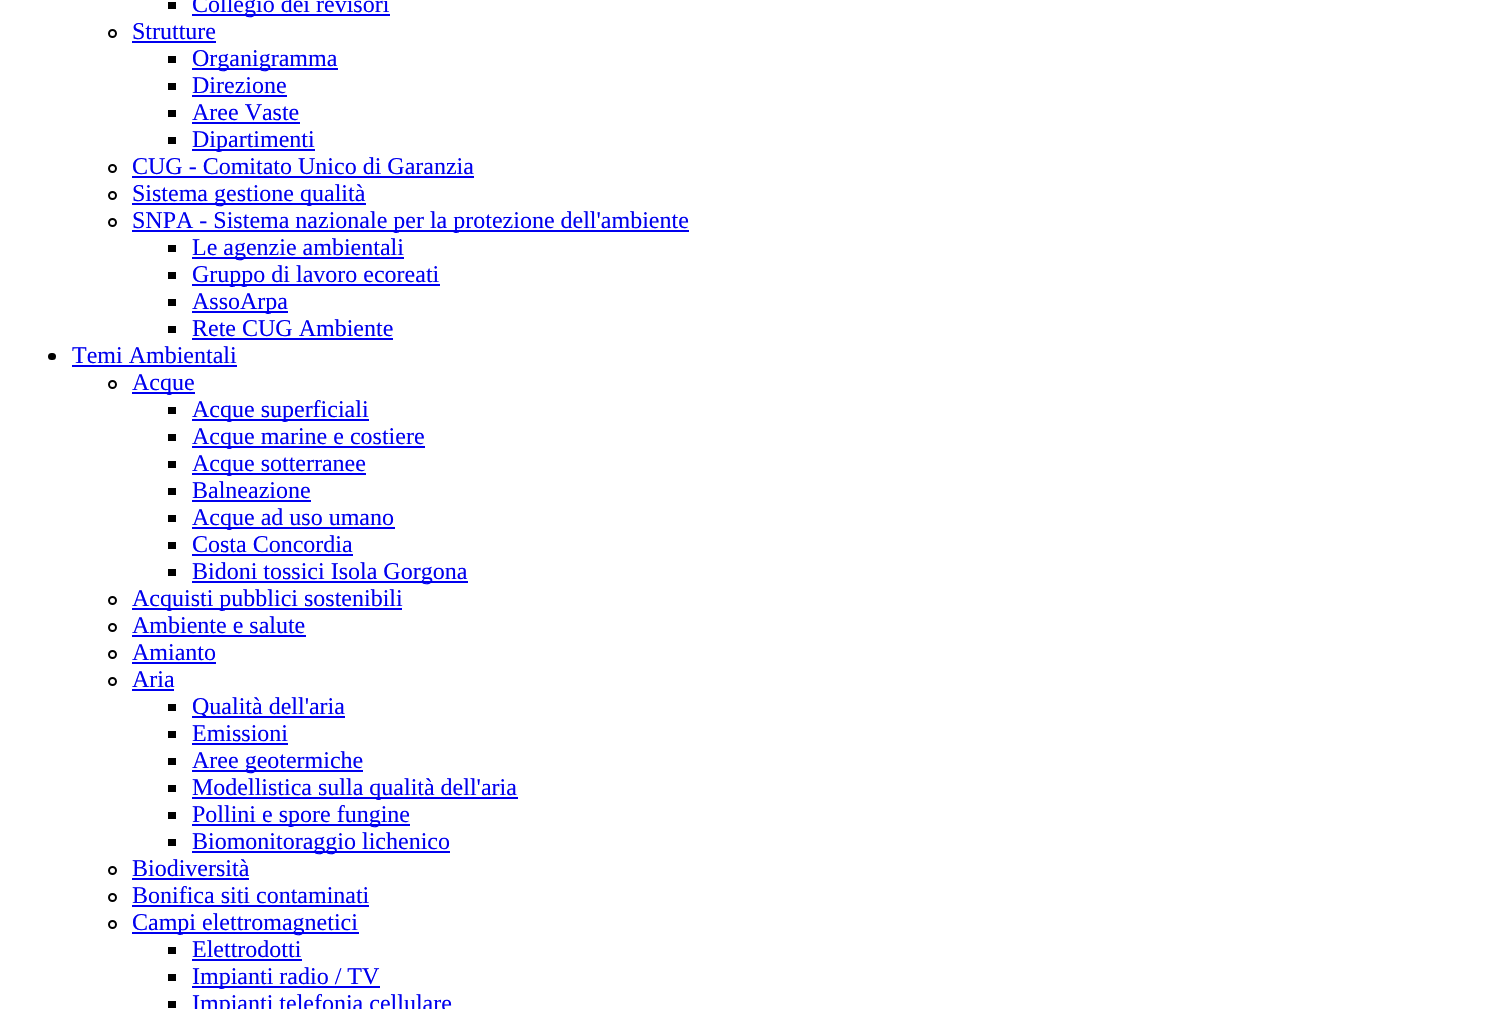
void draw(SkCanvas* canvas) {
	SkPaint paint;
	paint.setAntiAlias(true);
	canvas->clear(0xffffffff);
	paint.setColor(0xff000000);
	canvas->drawRect(SkRect::MakeXYWH(168, 2, 8, 7), paint);
	paint.setColor(0xff0000ee);
	canvas->drawRect(SkRect::MakeXYWH(192, 14, 198, 2), paint);
	SkFont f1(fontMgr->matchFamilyStyle("Liberation Serif", SkFontStyle::Normal()), 24);
	f1.setSubpixel(true);
	canvas->drawString("Collegio dei revisori", 192, 12, f1, paint);
	paint.setStroke(true);
	paint.setStrokeWidth(2);
	paint.setColor(0xff000000);
	canvas->drawCircle(112.5, 33.5, 3.5, paint);
	paint.setStroke(false);
	paint.setColor(0xff0000ee);
	canvas->drawString("Strutture", 132, 39, f1, paint);
	canvas->drawRect(SkRect::MakeXYWH(132, 41, 84, 2), paint);
	paint.setColor(0xff000000);
	canvas->drawRect(SkRect::MakeXYWH(168, 56, 8, 7), paint);
	paint.setColor(0xff0000ee);
	canvas->drawRect(SkRect::MakeXYWH(192, 68, 146, 2), paint);
	canvas->drawString("Organigramma", 192, 66, f1, paint);
	paint.setColor(0xff000000);
	canvas->drawRect(SkRect::MakeXYWH(168, 83, 8, 7), paint);
	paint.setColor(0xff0000ee);
	canvas->drawString("Direzione", 192, 93, f1, paint);
	canvas->drawRect(SkRect::MakeXYWH(192, 95, 95, 2), paint);
	paint.setColor(0xff000000);
	canvas->drawRect(SkRect::MakeXYWH(168, 110, 8, 7), paint);
	paint.setColor(0xff0000ee);
	canvas->drawString("Aree Vaste", 192, 120, f1, paint);
	canvas->drawRect(SkRect::MakeXYWH(192, 122, 108, 2), paint);
	paint.setColor(0xff000000);
	canvas->drawRect(SkRect::MakeXYWH(168, 137, 8, 7), paint);
	paint.setColor(0xff0000ee);
	canvas->drawRect(SkRect::MakeXYWH(192, 149, 123, 2), paint);
	canvas->drawString("Dipartimenti", 192, 147, f1, paint);
	paint.setStroke(true);
	paint.setColor(0xff000000);
	canvas->drawCircle(112.5, 168.5, 3.5, paint);
	paint.setStroke(false);
	paint.setColor(0xff0000ee);
	canvas->drawString("CUG - Comitato Unico di Garanzia", 132, 174, f1, paint);
	canvas->drawRect(SkRect::MakeXYWH(132, 176, 342, 2), paint);
	paint.setStroke(true);
	paint.setColor(0xff000000);
	canvas->drawCircle(112.5, 195.5, 3.5, paint);
	paint.setStroke(false);
	paint.setColor(0xff0000ee);
	canvas->drawRect(SkRect::MakeXYWH(132, 203, 234, 2), paint);
	canvas->drawString("Sistema gestione qualità", 132, 201, f1, paint);
	paint.setStroke(true);
	paint.setColor(0xff000000);
	canvas->drawCircle(112.5, 222.5, 3.5, paint);
	paint.setStroke(false);
	paint.setColor(0xff0000ee);
	canvas->drawRect(SkRect::MakeXYWH(132, 230, 557, 2), paint);
	canvas->drawString("SNPA - Sistema nazionale per la protezione dell'ambiente", 132, 228, f1, paint);
	paint.setColor(0xff000000);
	canvas->drawRect(SkRect::MakeXYWH(168, 245, 8, 7), paint);
	paint.setColor(0xff0000ee);
	canvas->drawRect(SkRect::MakeXYWH(192, 257, 212, 2), paint);
	canvas->drawString("Le agenzie ambientali", 192, 255, f1, paint);
	paint.setColor(0xff000000);
	canvas->drawRect(SkRect::MakeXYWH(168, 272, 8, 7), paint);
	paint.setColor(0xff0000ee);
	canvas->drawRect(SkRect::MakeXYWH(192, 284, 248, 2), paint);
	canvas->drawString("Gruppo di lavoro ecoreati", 192, 282, f1, paint);
	paint.setColor(0xff000000);
	canvas->drawRect(SkRect::MakeXYWH(168, 299, 8, 7), paint);
	paint.setColor(0xff0000ee);
	canvas->drawRect(SkRect::MakeXYWH(192, 311, 96, 2), paint);
	canvas->drawString("AssoArpa", 192, 309, f1, paint);
	paint.setColor(0xff000000);
	canvas->drawRect(SkRect::MakeXYWH(168, 326, 8, 7), paint);
	paint.setColor(0xff0000ee);
	canvas->drawString("Rete CUG Ambiente", 192, 336, f1, paint);
	canvas->drawRect(SkRect::MakeXYWH(192, 338, 201, 2), paint);
	paint.setColor(0xff000000);
	canvas->drawRoundRect(SkRect::MakeXYWH(48, 353, 8, 7), 3.5, 3.5, paint);
	paint.setColor(0xff0000ee);
	canvas->drawString("Temi Ambientali", 72, 363, f1, paint);
	canvas->drawRect(SkRect::MakeXYWH(72, 365, 165, 2), paint);
	paint.setStroke(true);
	paint.setColor(0xff000000);
	canvas->drawCircle(112.5, 384.5, 3.5, paint);
	paint.setStroke(false);
	paint.setColor(0xff0000ee);
	canvas->drawRect(SkRect::MakeXYWH(132, 392, 63, 2), paint);
	canvas->drawString("Acque", 132, 390, f1, paint);
	paint.setColor(0xff000000);
	canvas->drawRect(SkRect::MakeXYWH(168, 407, 8, 7), paint);
	paint.setColor(0xff0000ee);
	canvas->drawRect(SkRect::MakeXYWH(192, 419, 177, 2), paint);
	canvas->drawString("Acque superficiali", 192, 417, f1, paint);
	paint.setColor(0xff000000);
	canvas->drawRect(SkRect::MakeXYWH(168, 434, 8, 7), paint);
	paint.setColor(0xff0000ee);
	canvas->drawRect(SkRect::MakeXYWH(192, 446, 233, 2), paint);
	canvas->drawString("Acque marine e costiere", 192, 444, f1, paint);
	paint.setColor(0xff000000);
	canvas->drawRect(SkRect::MakeXYWH(168, 461, 8, 7), paint);
	paint.setColor(0xff0000ee);
	canvas->drawRect(SkRect::MakeXYWH(192, 473, 174, 2), paint);
	canvas->drawString("Acque sotterranee", 192, 471, f1, paint);
	paint.setColor(0xff000000);
	canvas->drawRect(SkRect::MakeXYWH(168, 488, 8, 7), paint);
	paint.setColor(0xff0000ee);
	canvas->drawString("Balneazione", 192, 498, f1, paint);
	canvas->drawRect(SkRect::MakeXYWH(192, 500, 119, 2), paint);
	paint.setColor(0xff000000);
	canvas->drawRect(SkRect::MakeXYWH(168, 515, 8, 7), paint);
	paint.setColor(0xff0000ee);
	canvas->drawRect(SkRect::MakeXYWH(192, 527, 203, 2), paint);
	canvas->drawString("Acque ad uso umano", 192, 525, f1, paint);
	paint.setColor(0xff000000);
	canvas->drawRect(SkRect::MakeXYWH(168, 542, 8, 7), paint);
	paint.setColor(0xff0000ee);
	canvas->drawString("Costa Concordia", 192, 552, f1, paint);
	canvas->drawRect(SkRect::MakeXYWH(192, 554, 161, 2), paint);
	paint.setColor(0xff000000);
	canvas->drawRect(SkRect::MakeXYWH(168, 569, 8, 7), paint);
	paint.setColor(0xff0000ee);
	canvas->drawRect(SkRect::MakeXYWH(192, 581, 276, 2), paint);
	canvas->drawString("Bidoni tossici Isola Gorgona", 192, 579, f1, paint);
	paint.setStroke(true);
	paint.setColor(0xff000000);
	canvas->drawCircle(112.5, 600.5, 3.5, paint);
	paint.setStroke(false);
	paint.setColor(0xff0000ee);
	canvas->drawRect(SkRect::MakeXYWH(132, 608, 270, 2), paint);
	canvas->drawString("Acquisti pubblici sostenibili", 132, 606, f1, paint);
	paint.setStroke(true);
	paint.setColor(0xff000000);
	canvas->drawCircle(112.5, 627.5, 3.5, paint);
	paint.setStroke(false);
	paint.setColor(0xff0000ee);
	canvas->drawString("Ambiente e salute", 132, 633, f1, paint);
	canvas->drawRect(SkRect::MakeXYWH(132, 635, 174, 2), paint);
	paint.setStroke(true);
	paint.setColor(0xff000000);
	canvas->drawCircle(112.5, 654.5, 3.5, paint);
	paint.setStroke(false);
	paint.setColor(0xff0000ee);
	canvas->drawString("Amianto", 132, 660, f1, paint);
	canvas->drawRect(SkRect::MakeXYWH(132, 662, 84, 2), paint);
	paint.setStroke(true);
	paint.setColor(0xff000000);
	canvas->drawCircle(112.5, 681.5, 3.5, paint);
	paint.setStroke(false);
	paint.setColor(0xff0000ee);
	canvas->drawString("Aria", 132, 687, f1, paint);
	canvas->drawRect(SkRect::MakeXYWH(132, 689, 42, 2), paint);
	paint.setColor(0xff000000);
	canvas->drawRect(SkRect::MakeXYWH(168, 704, 8, 7), paint);
	paint.setColor(0xff0000ee);
	canvas->drawRect(SkRect::MakeXYWH(192, 716, 153, 2), paint);
	canvas->drawString("Qualità dell'aria", 192, 714, f1, paint);
	paint.setColor(0xff000000);
	canvas->drawRect(SkRect::MakeXYWH(168, 731, 8, 7), paint);
	paint.setColor(0xff0000ee);
	canvas->drawString("Emissioni", 192, 741, f1, paint);
	canvas->drawRect(SkRect::MakeXYWH(192, 743, 96, 2), paint);
	paint.setColor(0xff000000);
	canvas->drawRect(SkRect::MakeXYWH(168, 758, 8, 7), paint);
	paint.setColor(0xff0000ee);
	canvas->drawRect(SkRect::MakeXYWH(192, 770, 171, 2), paint);
	canvas->drawString("Aree geotermiche", 192, 768, f1, paint);
	paint.setColor(0xff000000);
	canvas->drawRect(SkRect::MakeXYWH(168, 785, 8, 7), paint);
	paint.setColor(0xff0000ee);
	canvas->drawRect(SkRect::MakeXYWH(192, 797, 326, 2), paint);
	canvas->drawString("Modellistica sulla qualità dell'aria", 192, 795, f1, paint);
	paint.setColor(0xff000000);
	canvas->drawRect(SkRect::MakeXYWH(168, 812, 8, 7), paint);
	paint.setColor(0xff0000ee);
	canvas->drawRect(SkRect::MakeXYWH(192, 824, 218, 2), paint);
	canvas->drawString("Pollini e spore fungine", 192, 822, f1, paint);
	paint.setColor(0xff000000);
	canvas->drawRect(SkRect::MakeXYWH(168, 839, 8, 7), paint);
	paint.setColor(0xff0000ee);
	canvas->drawRect(SkRect::MakeXYWH(192, 851, 258, 2), paint);
	canvas->drawString("Biomonitoraggio lichenico", 192, 849, f1, paint);
	paint.setStroke(true);
	paint.setColor(0xff000000);
	canvas->drawCircle(112.5, 870.5, 3.5, paint);
	paint.setStroke(false);
	paint.setColor(0xff0000ee);
	canvas->drawString("Biodiversità", 132, 876, f1, paint);
	canvas->drawRect(SkRect::MakeXYWH(132, 878, 117, 2), paint);
	paint.setStroke(true);
	paint.setColor(0xff000000);
	canvas->drawCircle(112.5, 897.5, 3.5, paint);
	paint.setStroke(false);
	paint.setColor(0xff0000ee);
	canvas->drawString("Bonifica siti contaminati", 132, 903, f1, paint);
	canvas->drawRect(SkRect::MakeXYWH(132, 905, 237, 2), paint);
	paint.setStroke(true);
	paint.setColor(0xff000000);
	canvas->drawCircle(112.5, 924.5, 3.5, paint);
	paint.setStroke(false);
	paint.setColor(0xff0000ee);
	canvas->drawRect(SkRect::MakeXYWH(132, 932, 227, 2), paint);
	canvas->drawString("Campi elettromagnetici", 132, 930, f1, paint);
	paint.setColor(0xff000000);
	canvas->drawRect(SkRect::MakeXYWH(168, 947, 8, 7), paint);
	paint.setColor(0xff0000ee);
	canvas->drawString("Elettrodotti", 192, 957, f1, paint);
	canvas->drawRect(SkRect::MakeXYWH(192, 959, 110, 2), paint);
	paint.setColor(0xff000000);
	canvas->drawRect(SkRect::MakeXYWH(168, 974, 8, 7), paint);
	paint.setColor(0xff0000ee);
	canvas->drawRect(SkRect::MakeXYWH(192, 986, 188, 2), paint);
	canvas->drawString("Impianti radio / TV", 192, 984, f1, paint);
	paint.setColor(0xff000000);
	canvas->drawRect(SkRect::MakeXYWH(168, 1001, 8, 7), paint);
	paint.setColor(0xff0000ee);
	canvas->drawString("Impianti telefonia cellulare", 192, 1011, f1, paint);
}
